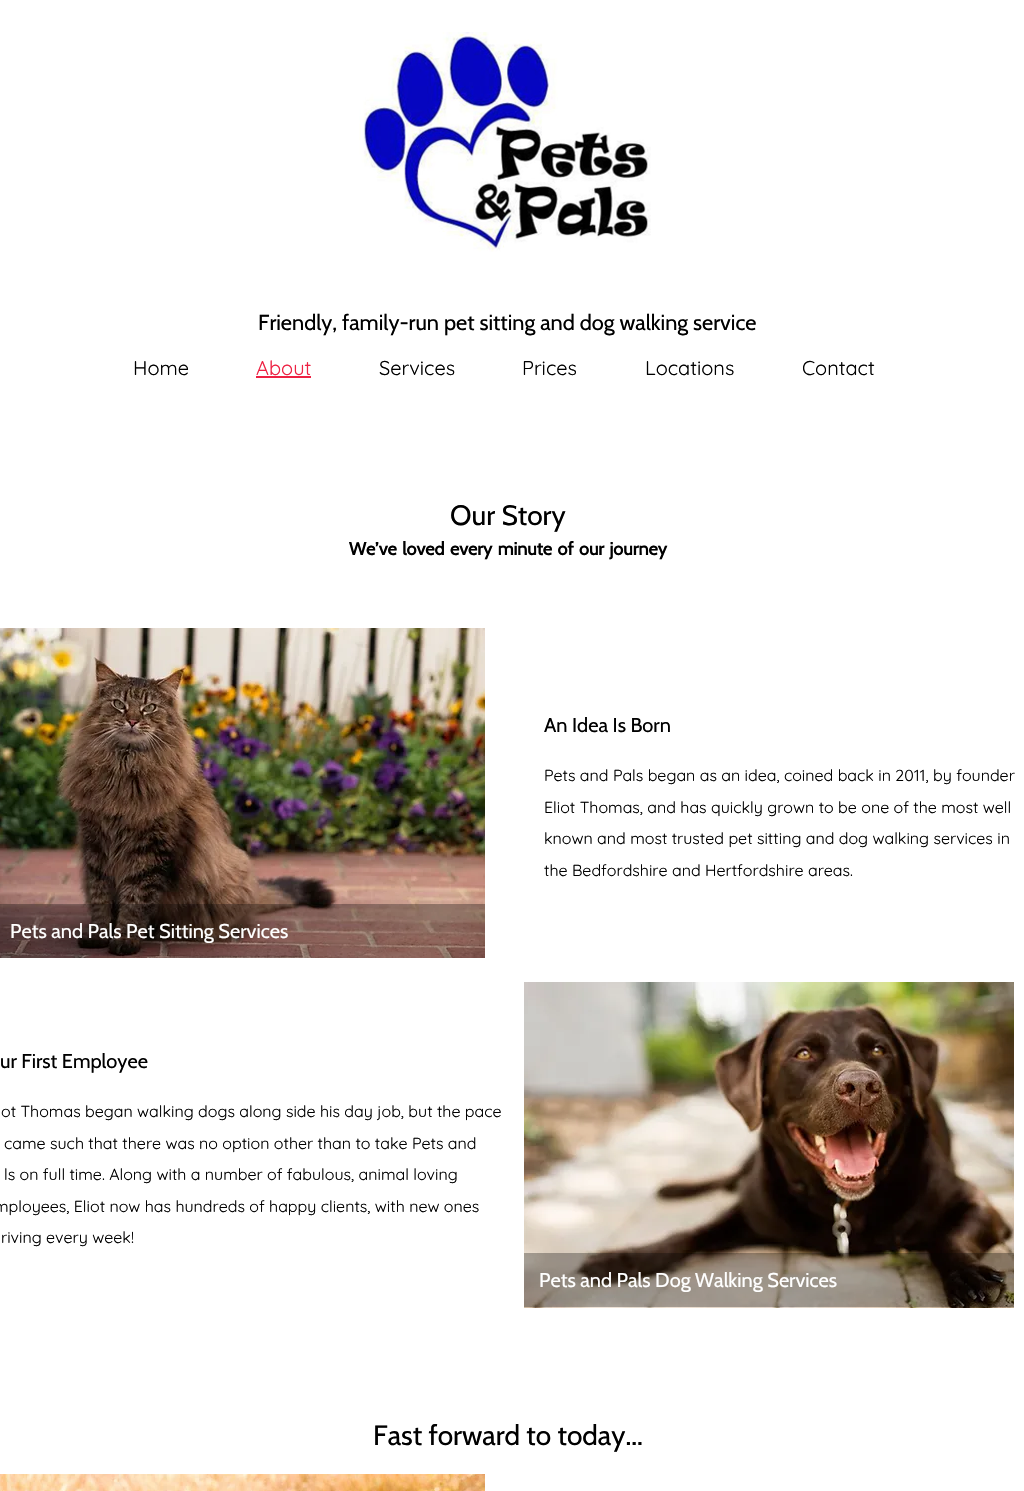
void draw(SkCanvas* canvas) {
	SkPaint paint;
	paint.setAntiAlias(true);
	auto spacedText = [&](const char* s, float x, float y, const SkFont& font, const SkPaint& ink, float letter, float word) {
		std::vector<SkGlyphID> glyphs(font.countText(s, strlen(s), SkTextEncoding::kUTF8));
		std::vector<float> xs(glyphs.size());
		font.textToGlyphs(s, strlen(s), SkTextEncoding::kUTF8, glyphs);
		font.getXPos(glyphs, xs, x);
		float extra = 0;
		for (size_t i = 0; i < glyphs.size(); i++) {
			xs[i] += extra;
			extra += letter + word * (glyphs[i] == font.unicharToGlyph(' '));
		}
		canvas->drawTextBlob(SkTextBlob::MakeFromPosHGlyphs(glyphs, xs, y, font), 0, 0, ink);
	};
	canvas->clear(0xffffffff);
	canvas->drawImageRect(SkImages::DeferredFromEncodedData(SkData::MakeFromFileName("img1.png")), SkRect::MakeXYWH(359, 32, 292, 220), SkSamplingOptions());
	SkFont f1(fontMgr->matchFamilyStyle("Cabin", SkFontStyle::Normal()), 21.75);
	f1.setSubpixel(true);
	paint.setColor(0xff000000);
	canvas->drawString("Friendly, family-run pet sitting and dog walking service", 258, 330, f1, paint);
	SkFont f2(fontMgr->matchFamilyStyle("Quicksand", SkFontStyle::Normal()), 20);
	f2.setSubpixel(true);
	canvas->drawString("Home", 133, 375, f2, paint);
	paint.setColor(0xffee2143);
	canvas->drawString("About", 256, 375, f2, paint);
	canvas->drawRect(SkRect::MakeXYWH(256, 376, 55, 2), paint);
	paint.setColor(0xff000000);
	canvas->drawString("Services", 379, 375, f2, paint);
	canvas->drawString("Prices", 522, 375, f2, paint);
	canvas->drawString("Locations", 645, 375, f2, paint);
	canvas->drawString("Contact", 802, 375, f2, paint);
	SkFont f3(fontMgr->matchFamilyStyle("Cabin", SkFontStyle::Normal()), 28);
	f3.setSubpixel(true);
	canvas->drawString("Our Story", 450, 525, f3, paint);
	SkFont f4(fontMgr->matchFamilyStyle("Cabin", SkFontStyle::Bold()), 18);
	f4.setSubpixel(true);
	spacedText("We’ve loved every minute of our journey", 349, 555, f4, paint, 0, 1.5);
	SkFont f5(fontMgr->matchFamilyStyle("Cabin", SkFontStyle::Normal()), 20);
	f5.setSubpixel(true);
	canvas->drawString("An Idea Is Born", 544, 732, f5, paint);
	SkFont f6(fontMgr->matchFamilyStyle("Quicksand", SkFontStyle::Normal()), 16);
	f6.setSubpixel(true);
	canvas->drawString("Pets and Pals began as an idea, coined back in 2011, by founder", 544, 781, f6, paint);
	canvas->drawString("Eliot Thomas, and has quickly grown to be one of the most well", 544, 813, f6, paint);
	canvas->drawString("known and most trusted pet sitting and dog walking services in", 544, 844, f6, paint);
	canvas->drawString("the Bedfordshire and Hertfordshire areas.", 544, 876, f6, paint);
	canvas->drawImageRect(SkImages::DeferredFromEncodedData(SkData::MakeFromFileName("img2.png")), SkRect::MakeXYWH(0, 628, 485, 330), SkSamplingOptions());
	paint.setColor(0x4d000000);
	canvas->drawRect(SkRect::MakeXYWH(0, 904, 485, 54), paint);
	paint.setColor(0xffffffff);
	canvas->drawString("Pets and Pals Pet Sitting Services", 10, 938, f5, paint);
	paint.setColor(0xff000000);
	canvas->drawString("ur First Employee", 0, 1068, f5, paint);
	canvas->drawString("ot Thomas began walking dogs along side his day job, but the pace", 1, 1117, f6, paint);
	canvas->drawString("came such that there was no option other than to take Pets and", 4, 1149, f6, paint);
	canvas->drawString("ls on full time. Along with a number of fabulous, animal loving", 4, 1180, f6, paint);
	canvas->drawString("mployees, Eliot now has hundreds of happy clients, with new ones", -6, 1212, f6, paint);
	canvas->drawString("riving every week!", 1, 1243, f6, paint);
	canvas->drawImageRect(SkImages::DeferredFromEncodedData(SkData::MakeFromFileName("img3.png")), SkRect::MakeXYWH(524, 982, 490, 326), SkSamplingOptions());
	paint.setColor(0x4d000000);
	canvas->drawRect(SkRect::MakeXYWH(524, 1253, 490, 54), paint);
	paint.setColor(0xffffffff);
	canvas->drawString("Pets and Pals Dog Walking Services", 539, 1287, f5, paint);
	paint.setColor(0xff000000);
	canvas->drawString("Fast forward to today...", 373, 1445, f3, paint);
	canvas->drawImageRect(SkImages::DeferredFromEncodedData(SkData::MakeFromFileName("img4.png")), SkRect::MakeXYWH(0, 1474, 485, 17), SkSamplingOptions());
}
